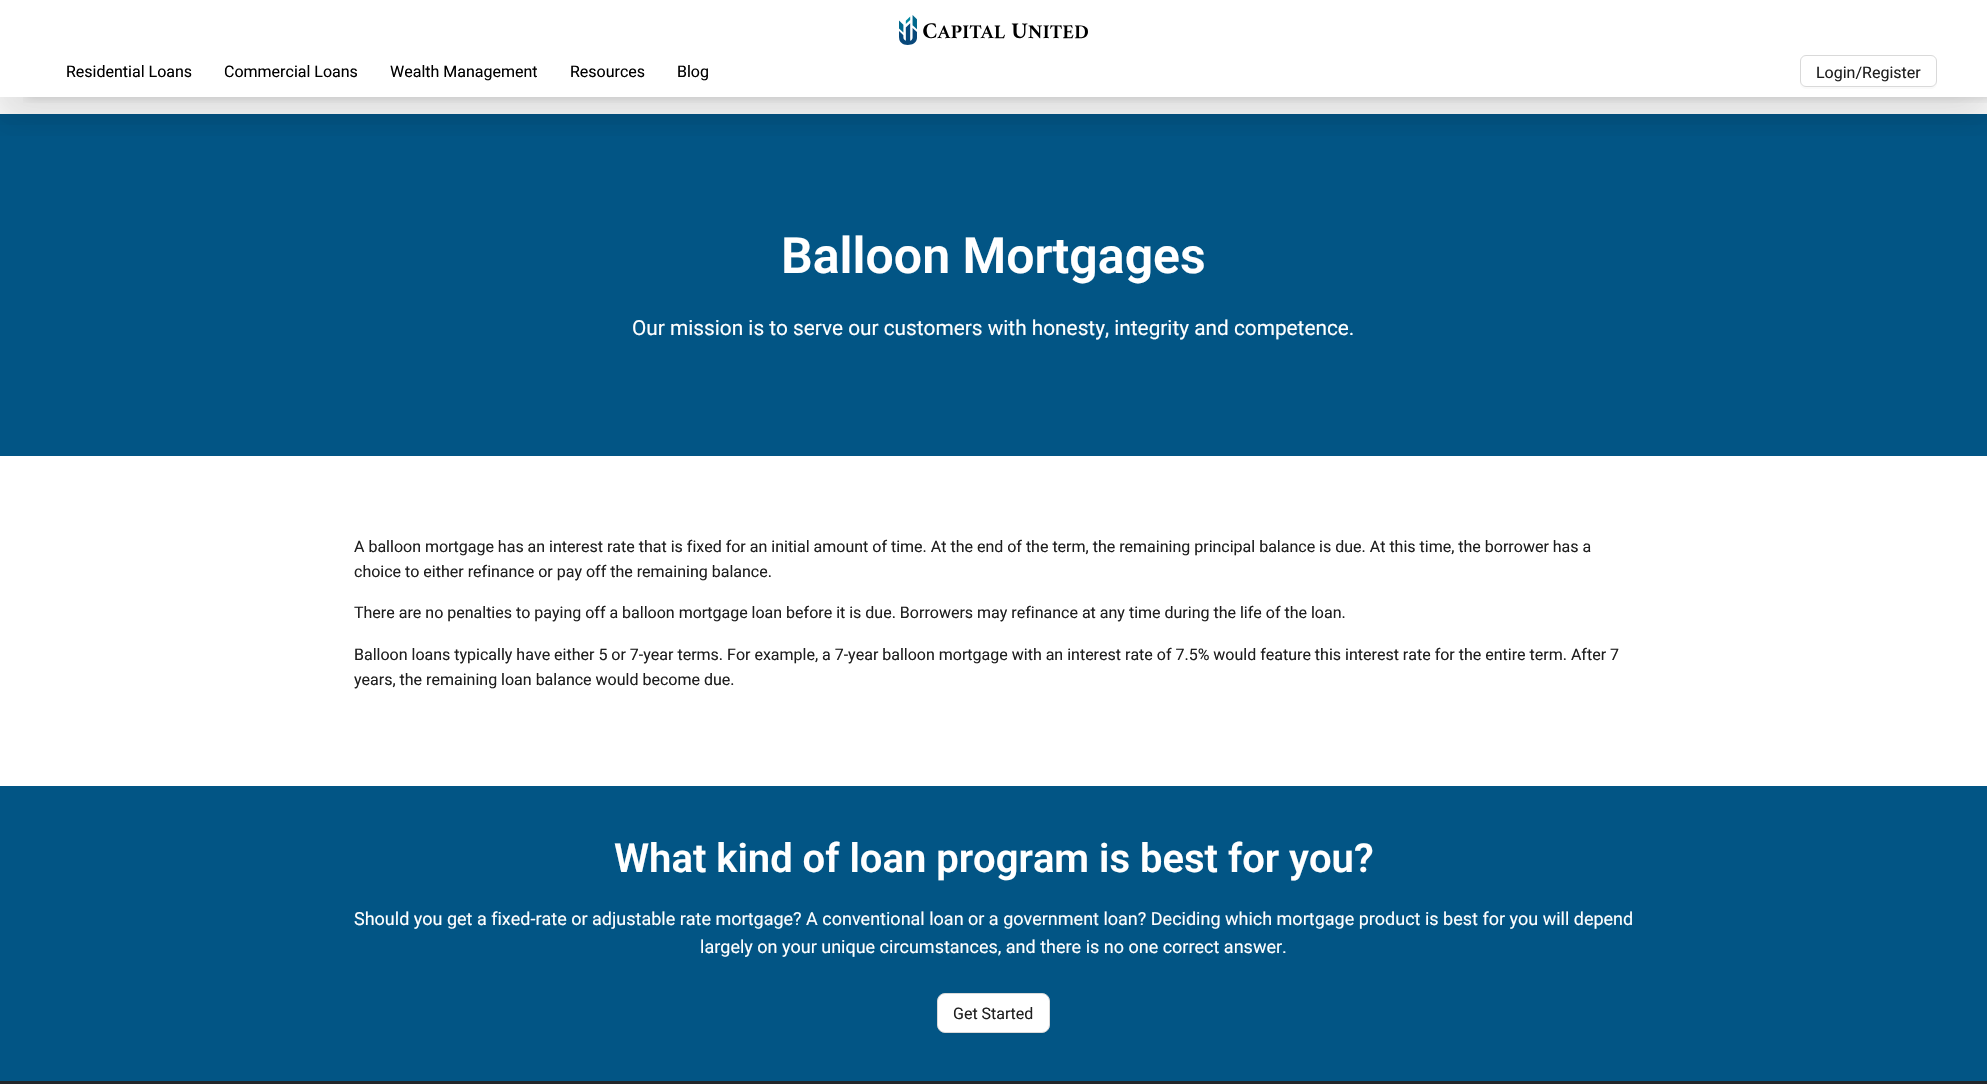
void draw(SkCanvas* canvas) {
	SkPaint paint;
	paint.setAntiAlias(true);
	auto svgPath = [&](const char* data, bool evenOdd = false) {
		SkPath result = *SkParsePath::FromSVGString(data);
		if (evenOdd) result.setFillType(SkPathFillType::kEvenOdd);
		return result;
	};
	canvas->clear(0xffffffff);
	paint.setColor(0xff025585);
	canvas->drawRect(SkRect::MakeXYWH(0, 114, 1987, 342), paint);
	canvas->save();
	canvas->clipRect(SkRect::MakeXYWH(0, 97, 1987, 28));
	paint.setColor(0x0f000000);
	paint.setMaskFilter(SkMaskFilter::MakeBlur(kNormal_SkBlurStyle, 24));
	canvas->drawRect(SkRect::MakeXYWH(-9, 1, 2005, 114), paint);
	paint.setMaskFilter(nullptr);
	canvas->restore();
	canvas->save();
	canvas->clipRect(SkRect::MakeXYWH(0, 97, 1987, 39));
	paint.setColor(0x14000000);
	paint.setMaskFilter(SkMaskFilter::MakeBlur(kNormal_SkBlurStyle, 18));
	canvas->drawRect(SkRect::MakeXYWH(-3, 21, 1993, 103), paint);
	paint.setMaskFilter(nullptr);
	canvas->restore();
	canvas->save();
	canvas->clipRect(SkRect::MakeXYWH(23, 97, 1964, 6));
	paint.setColor(0x24000000);
	paint.setMaskFilter(SkMaskFilter::MakeBlur(kNormal_SkBlurStyle, 5.5));
	canvas->drawRect(SkRect::MakeXYWH(26, 15, 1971, 82), paint);
	paint.setMaskFilter(nullptr);
	canvas->restore();
	canvas->drawImageRect(SkImages::DeferredFromEncodedData(SkData::MakeFromFileName("img1.png")), SkRect::MakeXYWH(899, 15, 189, 30), SkSamplingOptions());
	SkFont f1(fontMgr->matchFamilyStyle("Roboto", SkFontStyle::Normal()), 16);
	f1.setSubpixel(true);
	paint.setColor(0xff000000);
	canvas->drawString("Residential Loans", 66, 77, f1, paint);
	canvas->drawString("Commercial Loans", 224, 77, f1, paint);
	canvas->drawString("Wealth Management", 390, 77, f1, paint);
	canvas->drawString("Resources", 570, 77, f1, paint);
	canvas->drawString("Blog", 677, 77, f1, paint);
	paint.setColor(0xfffafafa);
	canvas->drawPath(svgPath("M1800 81V83C1800 86 1803 89 1806 89H1931C1934 89 1937 86 1937 83V81C1937 84 1934 87 1931 87H1806C1803 87 1800 84 1800 81Z"), paint);
	paint.setStroke(true);
	paint.setStrokeWidth(1);
	paint.setColor(0xffd9d9d9);
	canvas->drawRoundRect(SkRect::MakeXYWH(1800.5, 55.5, 136, 31), 5.5, 5.5, paint);
	paint.setStroke(false);
	paint.setColor(0xff1f1f1f);
	canvas->drawString("Login/Register", 1816, 78, f1, paint);
	SkFont f2(fontMgr->matchFamilyStyle("Roboto", SkFontStyle(600, SkFontStyle::kNormal_Width, SkFontStyle::kUpright_Slant)), 50);
	f2.setSubpixel(true);
	paint.setColor(0xffffffff);
	canvas->drawString("Balloon Mortgages", 781, 273, f2, paint);
	SkFont f3(fontMgr->matchFamilyStyle("Roboto", SkFontStyle::Normal()), 20.8);
	f3.setSubpixel(true);
	canvas->drawString("Our mission is to serve our customers with honesty, integrity and competence.", 632, 335, f3, paint);
	paint.setColor(0xff1f1f1f);
	canvas->drawString("A balloon mortgage has an interest rate that is fixed for an initial amount of time. At the end of the term, the remaining principal balance is due. At this time, the borrower has a", 354, 552, f1, paint);
	canvas->drawString("choice to either refinance or pay off the remaining balance.", 354, 577, f1, paint);
	canvas->drawString("There are no penalties to paying off a balloon mortgage loan before it is due. Borrowers may refinance at any time during the life of the loan.", 354, 618, f1, paint);
	canvas->drawString("Balloon loans typically have either 5 or 7-year terms. For example, a 7-year balloon mortgage with an interest rate of 7.5% would feature this interest rate for the entire term. After 7", 354, 660, f1, paint);
	canvas->drawString("years, the remaining loan balance would become due.", 354, 685, f1, paint);
	paint.setColor(0xff025585);
	canvas->drawRect(SkRect::MakeXYWH(0, 786, 1987, 295), paint);
	SkFont f4(fontMgr->matchFamilyStyle("Roboto", SkFontStyle(600, SkFontStyle::kNormal_Width, SkFontStyle::kUpright_Slant)), 40);
	f4.setSubpixel(true);
	paint.setColor(0xffffffff);
	canvas->drawString("What kind of loan program is best for you?", 614, 872, f4, paint);
	SkFont f5(fontMgr->matchFamilyStyle("Roboto", SkFontStyle::Normal()), 18);
	f5.setSubpixel(true);
	canvas->drawString("Should you get a fixed-rate or adjustable rate mortgage? A conventional loan or a government loan? Deciding which mortgage product is best for you will depend", 354, 925, f5, paint);
	canvas->drawString("largely on your unique circumstances, and there is no one correct answer.", 700, 953, f5, paint);
	paint.setColor(0xff025382);
	canvas->drawPath(svgPath("M937 1025C937 1039 951 1035 961 1035H1026C1036 1035 1050 1039 1050 1025C1050 1029 1046 1033 1042 1033H945C941 1033 937 1029 937 1025Z"), paint);
	paint.setColor(0xffffffff);
	canvas->drawRoundRect(SkRect::MakeXYWH(937.5, 993.5, 112, 39), 7.5, 7.5, paint);
	paint.setStroke(true);
	paint.setColor(0xffd9d9d9);
	canvas->drawRoundRect(SkRect::MakeXYWH(937.5, 993.5, 112, 39), 7.5, 7.5, paint);
	paint.setStroke(false);
	paint.setColor(0xff1f1f1f);
	canvas->drawString("Get Started", 953, 1019, f1, paint);
	paint.setColor(0xff22262a);
	canvas->drawRect(SkRect::MakeXYWH(0, 1081, 1987, 3), paint);
}
